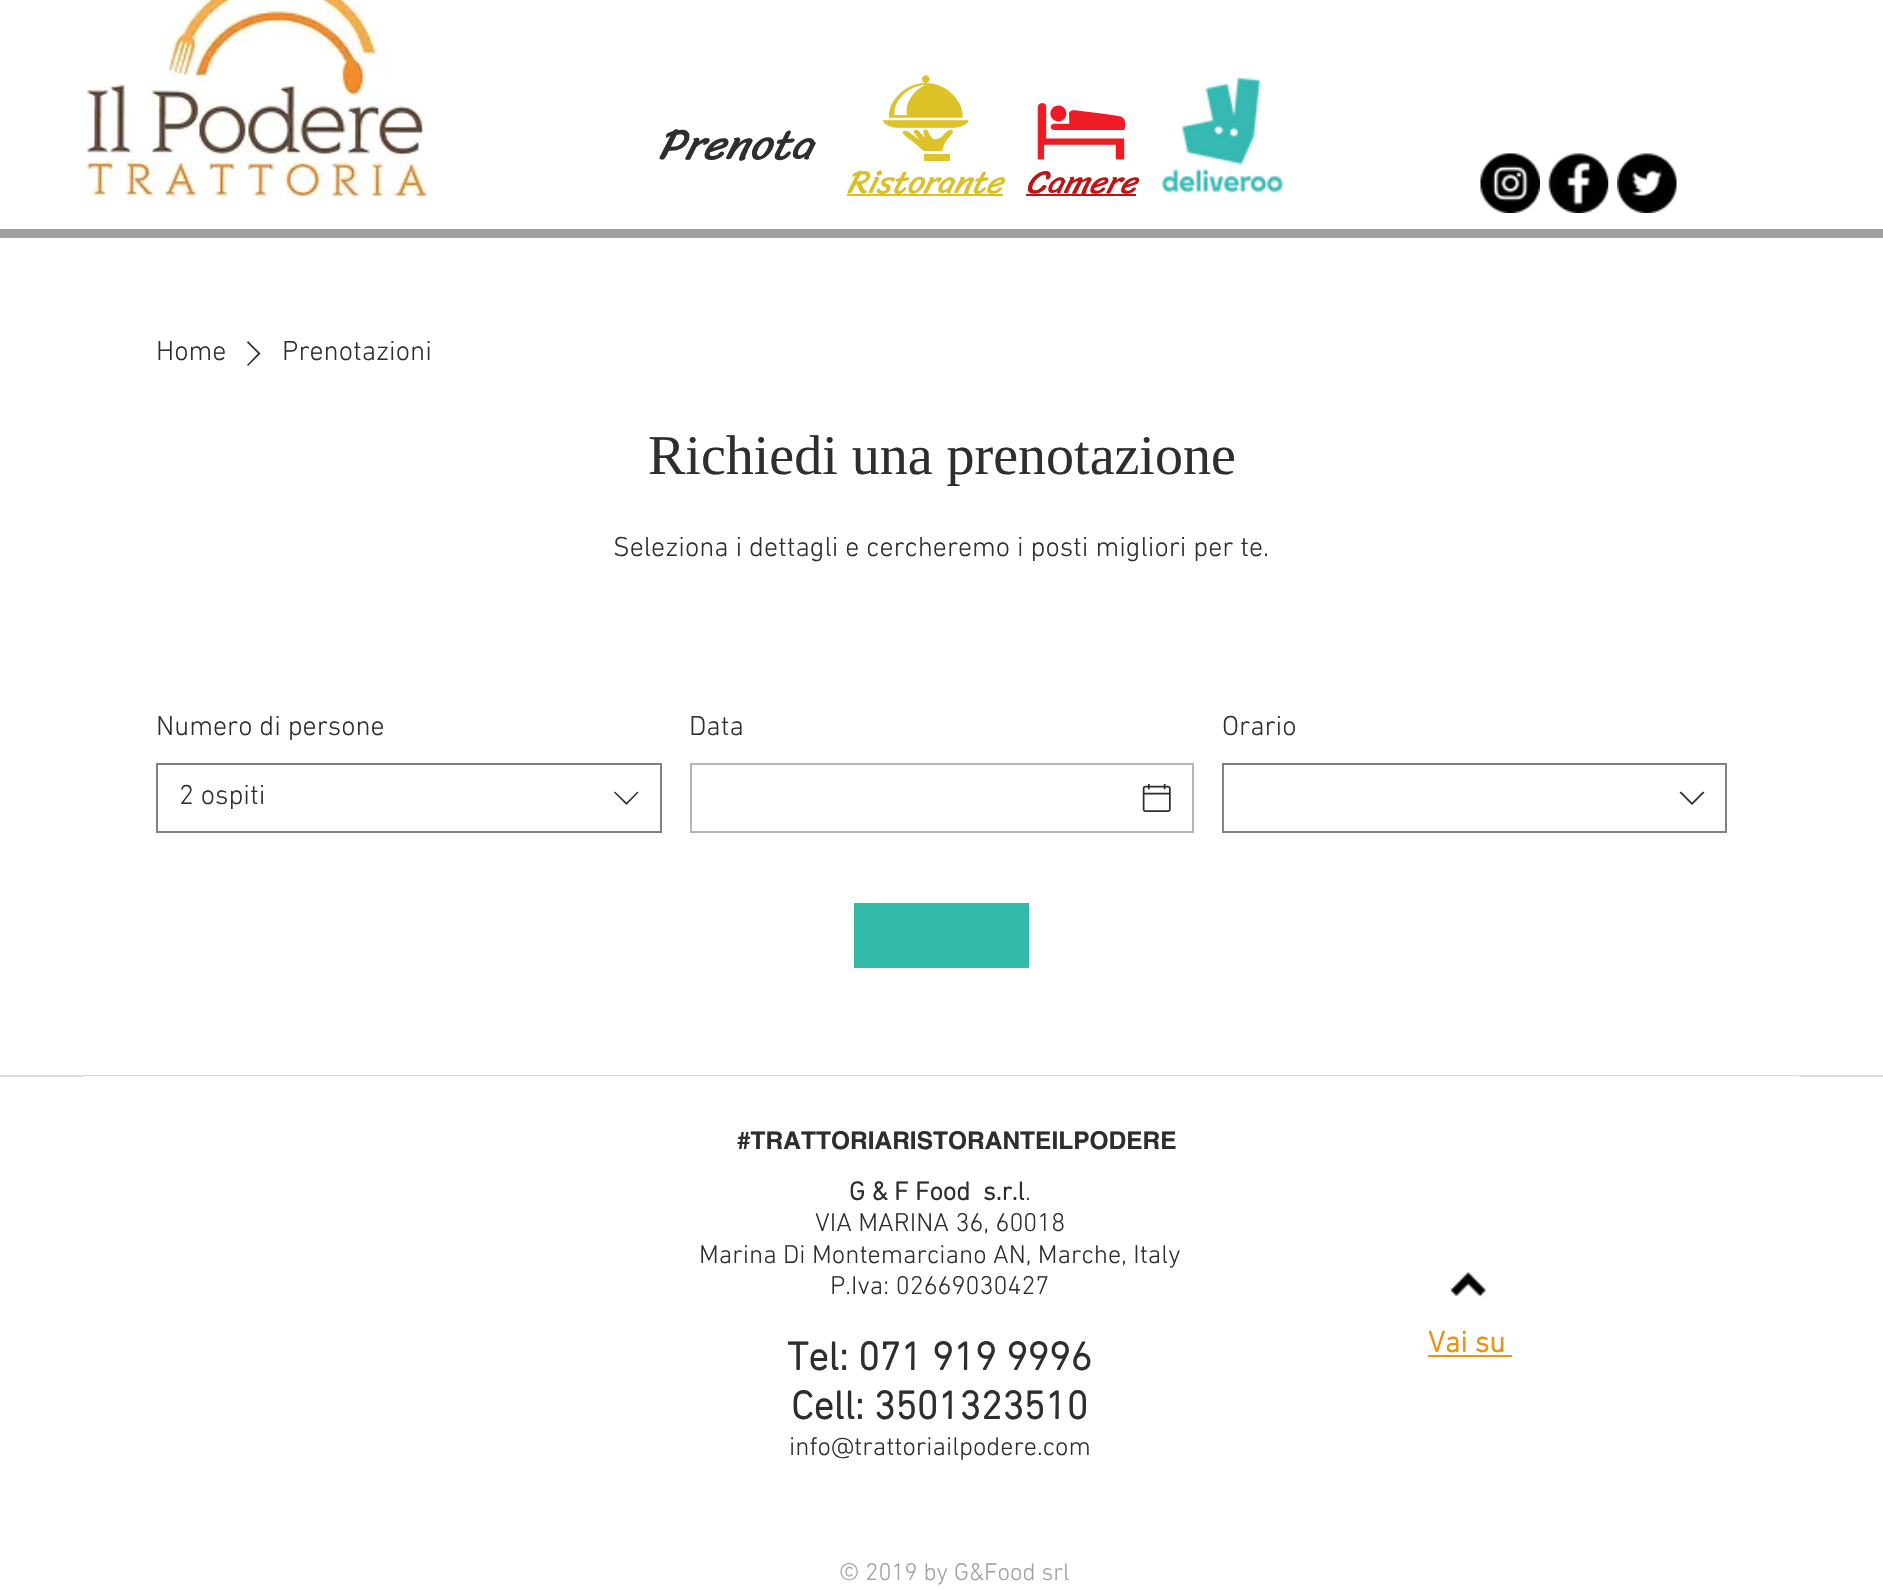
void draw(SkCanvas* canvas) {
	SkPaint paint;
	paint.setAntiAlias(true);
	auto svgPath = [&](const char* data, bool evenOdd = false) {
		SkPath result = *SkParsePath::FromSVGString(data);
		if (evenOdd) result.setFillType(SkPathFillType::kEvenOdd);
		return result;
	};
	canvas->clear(0xffffffff);
	canvas->drawImageRect(SkImages::DeferredFromEncodedData(SkData::MakeFromFileName("img1.png")), SkRect::MakeXYWH(84, 0, 345, 202), SkSamplingOptions());
	SkFont f1(fontMgr->matchFamilyStyle("Sriracha", SkFontStyle::Italic()), 44);
	f1.setSubpixel(true);
	paint.setColor(0xff2f2e2e);
	canvas->drawString("Prenota", 658, 159, f1, paint);
	canvas->drawImageRect(SkImages::DeferredFromEncodedData(SkData::MakeFromFileName("img2.png")), SkRect::MakeXYWH(882, 75, 87, 86), SkSamplingOptions());
	canvas->drawImageRect(SkImages::DeferredFromEncodedData(SkData::MakeFromFileName("img3.png")), SkRect::MakeXYWH(1037, 103, 89, 57), SkSamplingOptions());
	canvas->drawImageRect(SkImages::DeferredFromEncodedData(SkData::MakeFromFileName("img4.png")), SkRect::MakeXYWH(1161, 77, 123, 116), SkSamplingOptions());
	paint.setColor(0xffdabf27);
	canvas->drawRect(SkRect::MakeXYWH(847, 194, 156, 2), paint);
	SkFont f2(fontMgr->matchFamilyStyle("Sriracha", SkFontStyle::Italic()), 33.25);
	f2.setSubpixel(true);
	canvas->drawString("Ristorante", 847, 193, f2, paint);
	paint.setColor(0xffbd1515);
	canvas->drawRect(SkRect::MakeXYWH(1026, 194, 110, 2), paint);
	canvas->drawString("Camere", 1026, 193, f2, paint);
	canvas->drawImageRect(SkImages::DeferredFromEncodedData(SkData::MakeFromFileName("img5.png")), SkRect::MakeXYWH(1480, 153, 60, 60), SkSamplingOptions());
	canvas->drawImageRect(SkImages::DeferredFromEncodedData(SkData::MakeFromFileName("img6.png")), SkRect::MakeXYWH(1548, 153, 61, 60), SkSamplingOptions());
	canvas->drawImageRect(SkImages::DeferredFromEncodedData(SkData::MakeFromFileName("img7.png")), SkRect::MakeXYWH(1617, 153, 60, 60), SkSamplingOptions());
	paint.setColor(0xffa0a09f);
	canvas->drawRect(SkRect::MakeXYWH(0, 229, 1883, 9), paint);
	SkFont f3(fontMgr->matchFamilyStyle("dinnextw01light", SkFontStyle(300, SkFontStyle::kNormal_Width, SkFontStyle::kUpright_Slant)), 28);
	f3.setSubpixel(true);
	paint.setColor(0xff2f2e2e);
	canvas->drawString("Home", 156, 360, f3, paint);
	canvas->drawPath(svgPath("M248 341L260.5 353.5L248 366L247 365L258 353.5L247 342.5Z", true), paint);
	canvas->drawString("Prenotazioni", 282, 360, f3, paint);
	SkFont f4(fontMgr->matchFamilyStyle("Liberation Serif", SkFontStyle::Normal()), 56);
	f4.setSubpixel(true);
	canvas->drawString("Richiedi una prenotazione", 648, 474, f4, paint);
	canvas->drawString("Seleziona i dettagli e cercheremo i posti migliori per te.", 613, 556, f3, paint);
	canvas->drawString("Numero di persone", 156, 735, f3, paint);
	paint.setStroke(true);
	paint.setStrokeWidth(2);
	paint.setColor(0xff828282);
	canvas->drawRect(SkRect::MakeXYWH(157, 764, 504, 68), paint);
	paint.setStroke(false);
	paint.setColor(0xff2f2e2e);
	canvas->drawString("2 ospiti", 179, 804, f3, paint);
	canvas->drawPath(svgPath("M637.5 791.5L638.5 792.5L626.5 805L614 792.5L615 791.5L626.5 802.5Z", true), paint);
	canvas->drawString("Data", 689, 735, f3, paint);
	paint.setStroke(true);
	paint.setColor(0xffb4b4b4);
	canvas->drawRect(SkRect::MakeXYWH(691, 764, 502, 68), paint);
	canvas->drawImageRect(SkImages::DeferredFromEncodedData(SkData::MakeFromFileName("img8.png")), SkRect::MakeXYWH(1142, 784, 29, 28), SkSamplingOptions());
	paint.setStroke(false);
	paint.setColor(0xff2f2e2e);
	canvas->drawString("Orario", 1222, 735, f3, paint);
	paint.setStroke(true);
	paint.setColor(0xff828282);
	canvas->drawRect(SkRect::MakeXYWH(1223, 764, 503, 68), paint);
	paint.setStroke(false);
	paint.setColor(0xff2f2e2e);
	canvas->drawPath(svgPath("M1703 791.5L1704.5 792.5L1692 805L1679.5 792.5L1681 791.5L1692 802.5Z", true), paint);
	paint.setColor(0xff34baa8);
	canvas->drawRect(SkRect::MakeXYWH(854, 903, 175, 65), paint);
	paint.setColor(0xffdbdbdb);
	canvas->drawRect(SkRect::MakeXYWH(0, 1075, 1883, 2), paint);
	paint.setColor(0xffffffff);
	canvas->drawRect(SkRect::MakeXYWH(84, 1076, 1715, 1), paint);
	SkFont f5(fontMgr->matchFamilyStyle("helvetica", SkFontStyle::Bold()), 24.5);
	f5.setSubpixel(true);
	paint.setColor(0xff2f2e2e);
	canvas->drawString("#TRATTORIARISTORANTEILPODERE", 737, 1149, f5, paint);
	SkFont f6(fontMgr->matchFamilyStyle("dinnextw01light", SkFontStyle::Bold()), 26.25);
	f6.setSubpixel(true);
	canvas->drawString("G & F Food  s.r.l", 849, 1200, f6, paint);
	SkFont f7(fontMgr->matchFamilyStyle("dinnextw01light", SkFontStyle(300, SkFontStyle::kNormal_Width, SkFontStyle::kUpright_Slant)), 26.25);
	f7.setSubpixel(true);
	canvas->drawString(".", 1025, 1200, f7, paint);
	canvas->drawString("VIA MARINA 36, 60018", 815, 1231, f7, paint);
	canvas->drawString("Marina Di Montemarciano AN, Marche, Italy", 699, 1263, f7, paint);
	canvas->drawString("P.Iva: 02669030427", 830, 1294, f7, paint);
	SkFont f8(fontMgr->matchFamilyStyle("dinnextw01light", SkFontStyle::Bold()), 40.25);
	f8.setSubpixel(true);
	canvas->drawString("Tel: 071 919 9996", 787, 1370, f8, paint);
	canvas->drawString("Cell: 3501323510", 791, 1419, f8, paint);
	canvas->drawString("info@trattoriailpodere.com", 789, 1455, f7, paint);
	canvas->drawImageRect(SkImages::DeferredFromEncodedData(SkData::MakeFromFileName("img9.png")), SkRect::MakeXYWH(1449, 1272, 38, 25), SkSamplingOptions());
	SkFont f9(fontMgr->matchFamilyStyle("dinnextw01light", SkFontStyle::Bold()), 30);
	f9.setSubpixel(true);
	paint.setColor(0xffe89415);
	canvas->drawString("Vai su", 1428, 1352, f9, paint);
	canvas->drawRect(SkRect::MakeXYWH(1428, 1355, 84, 2), paint);
	SkFont f10(fontMgr->matchFamilyStyle("dinnextw01light", SkFontStyle(300, SkFontStyle::kNormal_Width, SkFontStyle::kUpright_Slant)), 24.5);
	f10.setSubpixel(true);
	paint.setColor(0xffa0a09f);
	canvas->drawString("© 2019 by G&Food srl", 839, 1580, f10, paint);
}
